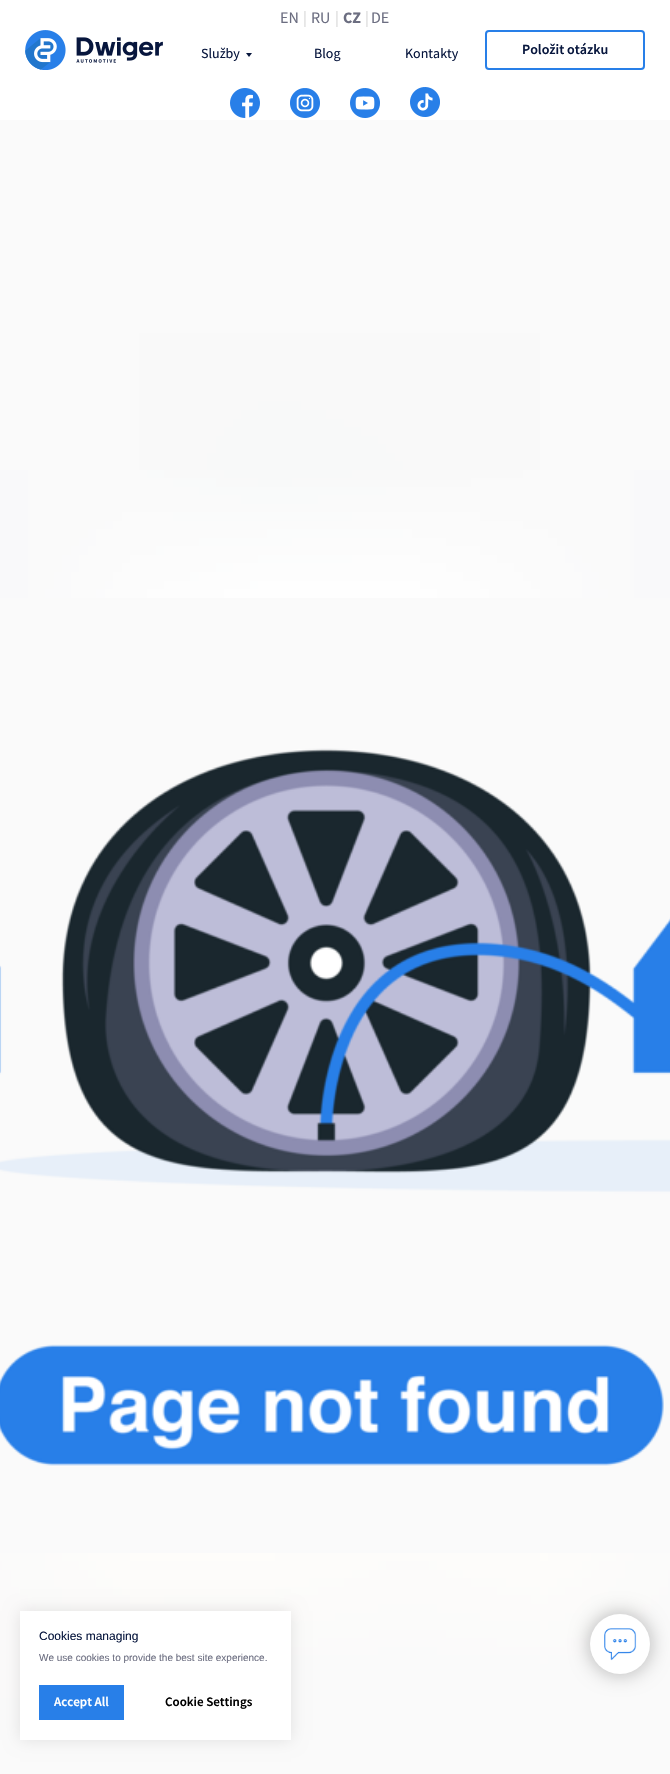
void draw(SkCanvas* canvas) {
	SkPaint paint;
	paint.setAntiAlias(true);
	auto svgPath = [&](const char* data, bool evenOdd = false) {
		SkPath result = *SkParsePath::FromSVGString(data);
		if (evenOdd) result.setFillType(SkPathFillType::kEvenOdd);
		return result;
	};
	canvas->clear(0xffffffff);
	SkFont f1(fontMgr->matchFamilyStyle("Source Sans Pro", SkFontStyle::Normal()), 16);
	f1.setSubpixel(true);
	paint.setColor(0xff6c6e81);
	canvas->drawString("EN", 280, 23, f1, paint);
	paint.setColor(0xffd9d9d9);
	canvas->drawString("|", 303, 23, f1, paint);
	paint.setColor(0xff6c6e81);
	canvas->drawString("RU", 311, 23, f1, paint);
	paint.setColor(0xffd9d9d9);
	canvas->drawString("|", 335, 23, f1, paint);
	SkFont f2(fontMgr->matchFamilyStyle("Source Sans Pro", SkFontStyle::Bold()), 16);
	f2.setSubpixel(true);
	paint.setColor(0xff6c6e81);
	canvas->drawString("CZ", 343, 23, f2, paint);
	paint.setColor(0xffd9d9d9);
	canvas->drawString("|", 365, 23, f1, paint);
	paint.setColor(0xff6c6e81);
	canvas->drawString("DE", 371, 23, f1, paint);
	canvas->drawImageRect(SkImages::DeferredFromEncodedData(SkData::MakeFromFileName("img1.png")), SkRect::MakeXYWH(25, 30, 138, 40), SkSamplingOptions());
	SkFont f3(fontMgr->matchFamilyStyle("Source Sans Pro", SkFontStyle::Normal()), 14);
	f3.setSubpixel(true);
	paint.setColor(0xff07163d);
	canvas->drawString("Služby", 201, 58, f3, paint);
	canvas->drawPath(svgPath("M246 53H252L249 57Z"), paint);
	canvas->drawString("Blog", 314, 58, f3, paint);
	canvas->drawString("Kontakty", 405, 58, f3, paint);
	paint.setStroke(true);
	paint.setStrokeWidth(2);
	paint.setColor(0xff287fe8);
	canvas->drawRoundRect(SkRect::MakeXYWH(486, 31, 158, 38), 3, 3, paint);
	SkFont f4(fontMgr->matchFamilyStyle("Source Sans Pro", SkFontStyle(600, SkFontStyle::kNormal_Width, SkFontStyle::kUpright_Slant)), 14);
	f4.setSubpixel(true);
	paint.setStroke(false);
	paint.setColor(0xff07163d);
	canvas->drawString("Položit otázku", 522, 54, f4, paint);
	canvas->drawImageRect(SkImages::DeferredFromEncodedData(SkData::MakeFromFileName("img2.png")), SkRect::MakeXYWH(230, 88, 30, 30), SkSamplingOptions());
	canvas->drawImageRect(SkImages::DeferredFromEncodedData(SkData::MakeFromFileName("img3.png")), SkRect::MakeXYWH(290, 88, 30, 30), SkSamplingOptions());
	canvas->drawImageRect(SkImages::DeferredFromEncodedData(SkData::MakeFromFileName("img4.png")), SkRect::MakeXYWH(350, 88, 30, 30), SkSamplingOptions());
	canvas->drawImageRect(SkImages::DeferredFromEncodedData(SkData::MakeFromFileName("img5.png")), SkRect::MakeXYWH(410, 87, 30, 30), SkSamplingOptions());
	canvas->drawImageRect(SkImages::DeferredFromEncodedData(SkData::MakeFromFileName("img6.png")), SkRect::MakeXYWH(0, 120, 670, 1654), SkSamplingOptions());
	canvas->drawImageRect(SkImages::DeferredFromEncodedData(SkData::MakeFromFileName("img7.png")), SkRect::MakeXYWH(0, 598, 670, 955), SkSamplingOptions());
	paint.setColor(0x1a000000);
	paint.setMaskFilter(SkMaskFilter::MakeBlur(kNormal_SkBlurStyle, 7.5));
	canvas->drawRect(SkRect::MakeXYWH(20, 1611, 271, 129), paint);
	paint.setMaskFilter(nullptr);
	paint.setColor(0xffffffff);
	canvas->drawRect(SkRect::MakeXYWH(20, 1611, 271, 129), paint);
	SkFont f5(fontMgr->matchFamilyStyle("Liberation Sans", SkFontStyle::Normal()), 12);
	f5.setSubpixel(true);
	paint.setColor(0xff07163d);
	canvas->drawString("Cookies managing", 39, 1640, f5, paint);
	SkFont f6(fontMgr->matchFamilyStyle("Liberation Sans", SkFontStyle::Normal()), 10);
	f6.setSubpixel(true);
	paint.setColor(0xff6c6e81);
	canvas->drawString("We use cookies to provide the best site experience.", 39, 1661, f6, paint);
	paint.setColor(0xff287fe8);
	canvas->drawRect(SkRect::MakeXYWH(39, 1685, 85, 35), paint);
	SkFont f7(fontMgr->matchFamilyStyle("Source Sans Pro", SkFontStyle(600, SkFontStyle::kNormal_Width, SkFontStyle::kUpright_Slant)), 13);
	f7.setSubpixel(true);
	paint.setColor(0xffffffff);
	canvas->drawString("Accept All", 54, 1706, f7, paint);
	paint.setColor(0xff000000);
	canvas->drawString("Cookie Settings", 165, 1706, f7, paint);
	paint.setColor(0x4d000000);
	paint.setMaskFilter(SkMaskFilter::MakeBlur(kNormal_SkBlurStyle, 10));
	canvas->drawRoundRect(SkRect::MakeXYWH(590, 1614, 60, 60), 30, 30, paint);
	paint.setMaskFilter(nullptr);
	paint.setColor(0xffffffff);
	canvas->drawCircle(620, 1644, 30, paint);
	canvas->drawImageRect(SkImages::DeferredFromEncodedData(SkData::MakeFromFileName("img8.png")), SkRect::MakeXYWH(604, 1628, 33, 33), SkSamplingOptions());
}
